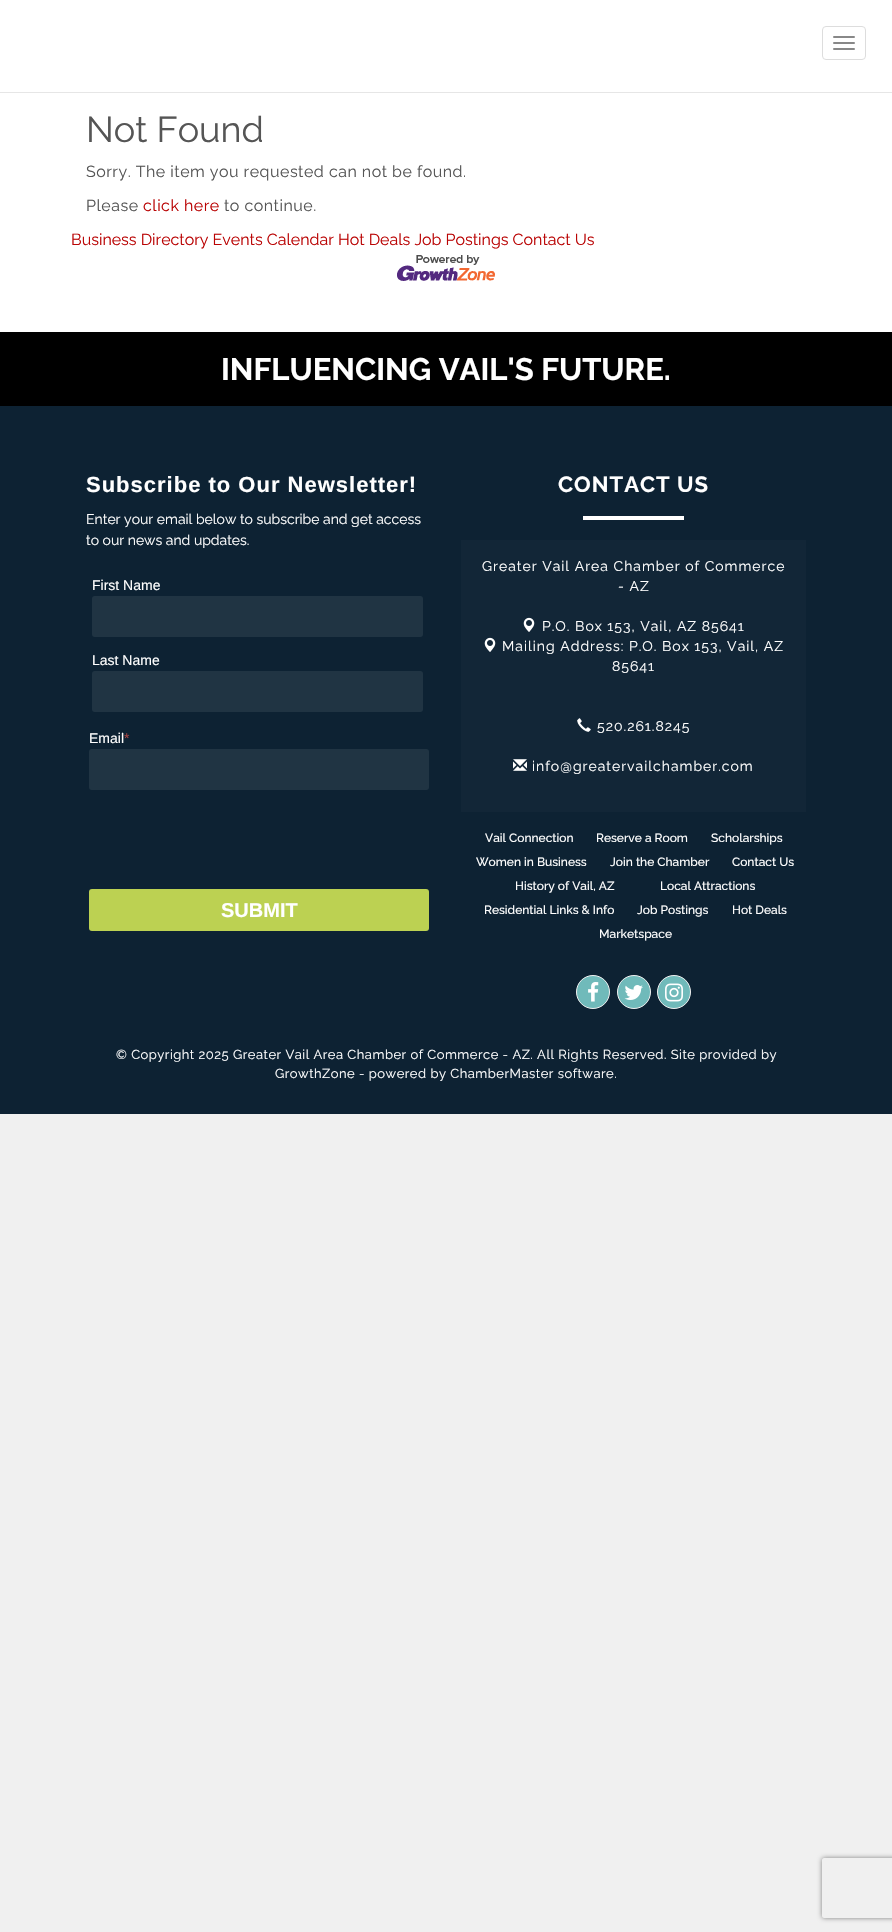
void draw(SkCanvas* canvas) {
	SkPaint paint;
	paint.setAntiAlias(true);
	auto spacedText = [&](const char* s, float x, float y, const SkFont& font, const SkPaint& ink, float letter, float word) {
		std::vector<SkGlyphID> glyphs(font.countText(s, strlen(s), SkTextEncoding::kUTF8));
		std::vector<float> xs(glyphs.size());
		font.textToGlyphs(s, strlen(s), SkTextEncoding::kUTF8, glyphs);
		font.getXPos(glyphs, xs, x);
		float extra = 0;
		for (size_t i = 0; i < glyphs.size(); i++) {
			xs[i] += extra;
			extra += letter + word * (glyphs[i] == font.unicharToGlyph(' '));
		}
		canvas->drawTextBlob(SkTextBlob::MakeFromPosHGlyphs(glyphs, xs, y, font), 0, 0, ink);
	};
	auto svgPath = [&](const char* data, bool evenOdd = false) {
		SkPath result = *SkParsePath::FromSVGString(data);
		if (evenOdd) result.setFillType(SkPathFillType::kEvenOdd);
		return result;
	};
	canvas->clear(0xfff0f0f0);
	paint.setColor(0xffffffff);
	canvas->drawRect(SkRect::MakeXYWH(0, 0, 892, 332), paint);
	paint.setColor(0xffe6e6e6);
	canvas->drawRect(SkRect::MakeXYWH(0, 92, 892, 1), paint);
	paint.setStroke(true);
	paint.setStrokeWidth(1);
	paint.setColor(0xffdddddd);
	canvas->drawRoundRect(SkRect::MakeXYWH(822.5, 26.5, 43, 33), 3.5, 3.5, paint);
	paint.setStroke(false);
	paint.setColor(0xff888888);
	canvas->drawRoundRect(SkRect::MakeXYWH(833, 36, 22, 2), 1, 1, paint);
	canvas->drawRoundRect(SkRect::MakeXYWH(833, 42, 22, 2), 1, 1, paint);
	canvas->drawRoundRect(SkRect::MakeXYWH(833, 48, 22, 2), 1, 1, paint);
	SkFont f1(fontMgr->matchFamilyStyle("Raleway", SkFontStyle::Normal()), 36);
	f1.setSubpixel(true);
	paint.setColor(0xff555555);
	canvas->drawString("Not Found", 86, 142, f1, paint);
	SkFont f2(fontMgr->matchFamilyStyle("Raleway", SkFontStyle::Normal()), 16);
	f2.setSubpixel(true);
	spacedText("Sorry. The item you requested can not be found.", 86, 177, f2, paint, 0.5, 0);
	spacedText("Please", 86, 211, f2, paint, 0.5, 0);
	paint.setColor(0xffba0404);
	spacedText("click here", 143, 211, f2, paint, 0.5, 0);
	paint.setColor(0xff555555);
	spacedText("to continue.", 224, 211, f2, paint, 0.5, 0);
	paint.setColor(0xffba0404);
	canvas->drawString("Business Directory Events Calendar Hot Deals Job Postings Contact Us", 71, 245, f2, paint);
	canvas->drawImageRect(SkImages::DeferredFromEncodedData(SkData::MakeFromFileName("img1.png")), SkRect::MakeXYWH(397, 255, 98, 26), SkSamplingOptions());
	paint.setColor(0xff000000);
	canvas->drawRect(SkRect::MakeXYWH(0, 332, 892, 74), paint);
	SkFont f3(fontMgr->matchFamilyStyle("Raleway", SkFontStyle::Bold()), 31);
	f3.setSubpixel(true);
	paint.setColor(0xffffffff);
	canvas->drawString("INFLUENCING VAIL'S FUTURE.", 221, 380, f3, paint);
	paint.setColor(0xff0d2233);
	canvas->drawRect(SkRect::MakeXYWH(0, 406, 892, 708), paint);
	SkFont f4(fontMgr->matchFamilyStyle("Liberation Sans", SkFontStyle::Bold()), 22);
	f4.setSubpixel(true);
	paint.setColor(0xffffffff);
	spacedText("Subscribe to Our Newsletter!", 86, 492, f4, paint, 1, 0);
	SkFont f5(fontMgr->matchFamilyStyle("Raleway", SkFontStyle::Normal()), 14);
	f5.setSubpixel(true);
	canvas->drawString("Enter your email below to subscribe and get access", 86, 524, f5, paint);
	canvas->drawString("to our news and updates.", 86, 545, f5, paint);
	SkFont f6(fontMgr->matchFamilyStyle("Liberation Sans", SkFontStyle::Normal()), 14);
	f6.setSubpixel(true);
	canvas->drawString("First Name", 92, 590, f6, paint);
	paint.setColor(0xff203443);
	canvas->drawRoundRect(SkRect::MakeXYWH(92, 596, 331, 41), 3, 3, paint);
	paint.setColor(0xffffffff);
	canvas->drawString("Last Name", 92, 665, f6, paint);
	paint.setColor(0xff203443);
	canvas->drawRoundRect(SkRect::MakeXYWH(92, 671, 331, 41), 3, 3, paint);
	paint.setColor(0xffffffff);
	canvas->drawString("Email", 89, 743, f6, paint);
	paint.setColor(0xffa94442);
	canvas->drawString("*", 124, 743, f6, paint);
	paint.setColor(0xff203443);
	canvas->drawRoundRect(SkRect::MakeXYWH(89, 749, 340, 41), 3, 3, paint);
	paint.setColor(0xffbcd152);
	canvas->drawRoundRect(SkRect::MakeXYWH(89, 889, 340, 42), 3, 3, paint);
	SkFont f7(fontMgr->matchFamilyStyle("Liberation Sans", SkFontStyle::Bold()), 20);
	f7.setSubpixel(true);
	paint.setColor(0xffffffff);
	canvas->drawString("SUBMIT", 221, 917, f7, paint);
	SkFont f8(fontMgr->matchFamilyStyle("Raleway", SkFontStyle::Bold()), 22);
	f8.setSubpixel(true);
	spacedText("CONTACT US", 558, 492, f8, paint, 1, 0);
	canvas->drawRect(SkRect::MakeXYWH(583, 516, 101, 4), paint);
	paint.setColor(0xff122637);
	canvas->drawRect(SkRect::MakeXYWH(461, 540, 345, 272), paint);
	paint.setColor(0xffffffff);
	spacedText("Greater Vail Area Chamber of Commerce", 482, 571, f5, paint, 1, 0);
	spacedText("- AZ", 618, 591, f5, paint, 1, 0);
	canvas->drawImageRect(SkImages::DeferredFromEncodedData(SkData::MakeFromFileName("img2.png")), SkRect::MakeXYWH(523, 617, 12, 15), SkSamplingOptions());
	spacedText("P.O. Box 153, Vail, AZ 85641", 542, 631, f5, paint, 1, 0);
	canvas->drawImageRect(SkImages::DeferredFromEncodedData(SkData::MakeFromFileName("img2.png")), SkRect::MakeXYWH(484, 637, 12, 15), SkSamplingOptions());
	spacedText("Mailing Address: P.O. Box 153, Vail, AZ", 502, 651, f5, paint, 1, 0);
	spacedText("85641", 612, 671, f5, paint, 1, 0);
	canvas->drawImageRect(SkImages::DeferredFromEncodedData(SkData::MakeFromFileName("img3.png")), SkRect::MakeXYWH(577, 718, 14, 14), SkSamplingOptions());
	spacedText("520.261.8245", 597, 731, f5, paint, 1, 0);
	canvas->drawImageRect(SkImages::DeferredFromEncodedData(SkData::MakeFromFileName("img4.png")), SkRect::MakeXYWH(513, 759, 14, 12), SkSamplingOptions());
	spacedText("info@greatervailchamber.com", 532, 771, f5, paint, 1, 0);
	SkFont f9(fontMgr->matchFamilyStyle("Raleway", SkFontStyle(500, SkFontStyle::kNormal_Width, SkFontStyle::kUpright_Slant)), 12);
	f9.setSubpixel(true);
	canvas->drawString("Vail Connection", 485, 842, f9, paint);
	canvas->drawString("Reserve a Room", 596, 842, f9, paint);
	canvas->drawString("Scholarships", 711, 842, f9, paint);
	canvas->drawString("Women in Business", 476, 866, f9, paint);
	canvas->drawString("Join the Chamber", 610, 866, f9, paint);
	canvas->drawString("Contact Us", 732, 866, f9, paint);
	canvas->drawString("History of Vail, AZ", 515, 890, f9, paint);
	canvas->drawString("Local Attractions", 660, 890, f9, paint);
	canvas->drawString("Residential Links & Info", 484, 914, f9, paint);
	canvas->drawString("Job Postings", 637, 914, f9, paint);
	canvas->drawString("Hot Deals", 732, 914, f9, paint);
	canvas->drawString("Marketspace", 599, 938, f9, paint);
	paint.setColor(0xff70baba);
	canvas->drawCircle(593, 992, 16.5, paint);
	paint.setStroke(true);
	paint.setColor(0xfff0f0f0);
	canvas->drawCircle(593, 992, 16.5, paint);
	canvas->drawImageRect(SkImages::DeferredFromEncodedData(SkData::MakeFromFileName("img5.png")), SkRect::MakeXYWH(588, 982, 11, 20), SkSamplingOptions());
	paint.setStroke(false);
	paint.setColor(0xff70baba);
	canvas->drawCircle(634, 992, 16.5, paint);
	paint.setStroke(true);
	paint.setColor(0xfff0f0f0);
	canvas->drawCircle(634, 992, 16.5, paint);
	canvas->drawImageRect(SkImages::DeferredFromEncodedData(SkData::MakeFromFileName("img6.png")), SkRect::MakeXYWH(624, 985, 19, 15), SkSamplingOptions());
	paint.setStroke(false);
	paint.setColor(0xff70baba);
	canvas->drawCircle(674, 992, 16.5, paint);
	paint.setStroke(true);
	paint.setColor(0xfff0f0f0);
	canvas->drawCircle(674, 992, 16.5, paint);
	canvas->drawImageRect(SkImages::DeferredFromEncodedData(SkData::MakeFromFileName("img7.png")), SkRect::MakeXYWH(665, 983, 18, 19), SkSamplingOptions());
	SkFont f10(fontMgr->matchFamilyStyle("Raleway", SkFontStyle::Normal()), 13);
	f10.setSubpixel(true);
	paint.setStroke(false);
	paint.setColor(0xffffffff);
	spacedText("© Copyright 2025 Greater Vail Area Chamber of Commerce - AZ. All Rights Reserved. Site provided by", 116, 1059, f10, paint, 0.5, 0);
	spacedText("GrowthZone - powered by ChamberMaster software.", 275, 1078, f10, paint, 0.5, 0);
	canvas->save();
	canvas->clipPath(svgPath("M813 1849H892V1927H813ZM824 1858H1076C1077 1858 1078 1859 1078 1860V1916C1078 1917 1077 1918 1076 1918H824C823 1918 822 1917 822 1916V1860C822 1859 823 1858 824 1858Z", true), true);
	paint.setColor(0xff808080);
	paint.setMaskFilter(SkMaskFilter::MakeBlur(kNormal_SkBlurStyle, 2.5));
	canvas->drawRoundRect(SkRect::MakeXYWH(822, 1858, 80, 60), 2, 2, paint);
	paint.setMaskFilter(nullptr);
	canvas->restore();
}
